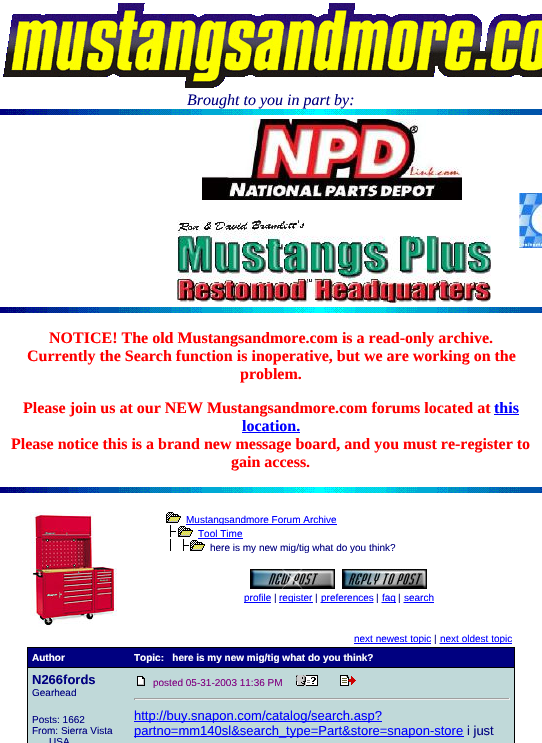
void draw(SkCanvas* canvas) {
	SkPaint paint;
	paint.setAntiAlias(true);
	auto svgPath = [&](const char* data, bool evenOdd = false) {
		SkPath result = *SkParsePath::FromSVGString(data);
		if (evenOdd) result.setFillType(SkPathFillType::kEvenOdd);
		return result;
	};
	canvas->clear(0xffffffff);
	canvas->drawImageRect(SkImages::DeferredFromEncodedData(SkData::MakeFromFileName("img1.png")), SkRect::MakeXYWH(3, 3, 539, 85), SkSamplingOptions());
	SkFont f1(fontMgr->matchFamilyStyle("Liberation Serif", SkFontStyle::Italic()), 16);
	f1.setSubpixel(true);
	paint.setColor(0xff000080);
	canvas->drawString("Brought to you in part by:", 187, 105, f1, paint);
	canvas->drawImageRect(SkImages::DeferredFromEncodedData(SkData::MakeFromFileName("img2.png")), SkRect::MakeXYWH(0, 109, 542, 6), SkSamplingOptions());
	canvas->drawImageRect(SkImages::DeferredFromEncodedData(SkData::MakeFromFileName("img3.png")), SkRect::MakeXYWH(202, 119, 260, 81), SkSamplingOptions());
	canvas->drawImageRect(SkImages::DeferredFromEncodedData(SkData::MakeFromFileName("img4.png")), SkRect::MakeXYWH(177, 220, 314, 83), SkSamplingOptions());
	canvas->drawImageRect(SkImages::DeferredFromEncodedData(SkData::MakeFromFileName("img5.png")), SkRect::MakeXYWH(519, 193, 23, 55), SkSamplingOptions());
	canvas->drawImageRect(SkImages::DeferredFromEncodedData(SkData::MakeFromFileName("img2.png")), SkRect::MakeXYWH(0, 307, 542, 6), SkSamplingOptions());
	SkFont f2(fontMgr->matchFamilyStyle("Liberation Serif", SkFontStyle::Bold()), 16);
	f2.setSubpixel(true);
	paint.setColor(0xffff0000);
	canvas->drawString("NOTICE! The old Mustangsandmore.com is a read-only archive.", 49, 343, f2, paint);
	canvas->drawString("Currently the Search function is inoperative, but we are working on the", 27, 361, f2, paint);
	canvas->drawString("problem.", 240, 379, f2, paint);
	canvas->drawString("Please join us at our NEW Mustangsandmore.com forums located at", 23, 413, f2, paint);
	paint.setColor(0xff0000ff);
	canvas->drawRect(SkRect::MakeXYWH(494, 414, 25, 1), paint);
	canvas->drawString("this", 494, 413, f2, paint);
	canvas->drawString("location.", 242, 431, f2, paint);
	canvas->drawRect(SkRect::MakeXYWH(242, 432, 58, 1), paint);
	paint.setColor(0xffff0000);
	canvas->drawString("Please notice this is a brand new message board, and you must re-register to", 11, 449, f2, paint);
	canvas->drawString("gain access.", 231, 467, f2, paint);
	canvas->drawImageRect(SkImages::DeferredFromEncodedData(SkData::MakeFromFileName("img2.png")), SkRect::MakeXYWH(0, 487, 542, 6), SkSamplingOptions());
	canvas->drawImageRect(SkImages::DeferredFromEncodedData(SkData::MakeFromFileName("img6.png")), SkRect::MakeXYWH(30, 512, 87, 115), SkSamplingOptions());
	canvas->drawImageRect(SkImages::DeferredFromEncodedData(SkData::MakeFromFileName("img7.png")), SkRect::MakeXYWH(166, 512, 15, 11), SkSamplingOptions());
	paint.setColor(0xff0000ff);
	canvas->drawRect(SkRect::MakeXYWH(186, 524, 151, 1), paint);
	SkFont f3(fontMgr->matchFamilyStyle("Liberation Sans", SkFontStyle::Normal()), 10);
	f3.setSubpixel(true);
	canvas->drawString("Mustangsandmore Forum Archive", 186, 523, f3, paint);
	canvas->drawImageRect(SkImages::DeferredFromEncodedData(SkData::MakeFromFileName("img8.png")), SkRect::MakeXYWH(170, 525, 6, 12), SkSamplingOptions());
	canvas->drawImageRect(SkImages::DeferredFromEncodedData(SkData::MakeFromFileName("img7.png")), SkRect::MakeXYWH(178, 526, 15, 11), SkSamplingOptions());
	canvas->drawString("Tool Time", 198, 537, f3, paint);
	canvas->drawRect(SkRect::MakeXYWH(198, 538, 45, 1), paint);
	canvas->drawImageRect(SkImages::DeferredFromEncodedData(SkData::MakeFromFileName("img9.png")), SkRect::MakeXYWH(170, 539, 19, 12), SkSamplingOptions());
	canvas->drawImageRect(SkImages::DeferredFromEncodedData(SkData::MakeFromFileName("img7.png")), SkRect::MakeXYWH(190, 540, 15, 11), SkSamplingOptions());
	paint.setColor(0xff000080);
	canvas->drawString("here is my new mig/tig what do you think?", 210, 551, f3, paint);
	canvas->drawImageRect(SkImages::DeferredFromEncodedData(SkData::MakeFromFileName("img10.png")), SkRect::MakeXYWH(250, 569, 85, 20), SkSamplingOptions());
	canvas->drawImageRect(SkImages::DeferredFromEncodedData(SkData::MakeFromFileName("img11.png")), SkRect::MakeXYWH(342, 569, 85, 20), SkSamplingOptions());
	paint.setColor(0xff0000ff);
	canvas->drawRect(SkRect::MakeXYWH(244, 602, 27, 1), paint);
	canvas->drawString("profile", 244, 601, f3, paint);
	paint.setColor(0xff000080);
	canvas->drawString("|", 274, 601, f3, paint);
	paint.setColor(0xff0000ff);
	canvas->drawRect(SkRect::MakeXYWH(279, 602, 34, 1), paint);
	canvas->drawString("register", 279, 601, f3, paint);
	paint.setColor(0xff000080);
	canvas->drawString("|", 315, 601, f3, paint);
	paint.setStroke(true);
	paint.setStrokeWidth(1);
	paint.setColor(0xff0000ff);
	paint.setPathEffect(SkDashPathEffect::Make({{1, 1}}, 0));
	canvas->drawPath(svgPath("M320.5 602.5H373.5"), paint);
	paint.setPathEffect(nullptr);
	paint.setStroke(false);
	canvas->drawRect(SkRect::MakeXYWH(321, 602, 52, 1), paint);
	canvas->drawString("preferences", 321, 601, f3, paint);
	paint.setColor(0xff000080);
	canvas->drawString("|", 376, 601, f3, paint);
	paint.setStroke(true);
	paint.setColor(0xff0000ff);
	paint.setPathEffect(SkDashPathEffect::Make({{1, 1}}, 0));
	canvas->drawPath(svgPath("M381.5 602.5H395.5"), paint);
	paint.setPathEffect(nullptr);
	paint.setStroke(false);
	canvas->drawRect(SkRect::MakeXYWH(382, 602, 14, 1), paint);
	canvas->drawString("faq", 382, 601, f3, paint);
	paint.setColor(0xff000080);
	canvas->drawString("|", 398, 601, f3, paint);
	paint.setStroke(true);
	paint.setColor(0xff0000ff);
	paint.setPathEffect(SkDashPathEffect::Make({{1, 1}}, 0));
	canvas->drawPath(svgPath("M403.5 602.5H433.5"), paint);
	paint.setPathEffect(nullptr);
	paint.setStroke(false);
	canvas->drawString("search", 404, 601, f3, paint);
	canvas->drawRect(SkRect::MakeXYWH(404, 602, 30, 1), paint);
	canvas->drawRect(SkRect::MakeXYWH(354, 643, 77, 1), paint);
	canvas->drawString("next newest topic", 354, 642, f3, paint);
	paint.setColor(0xff000080);
	canvas->drawString("|", 434, 642, f3, paint);
	paint.setStroke(true);
	paint.setColor(0xff0000ff);
	paint.setPathEffect(SkDashPathEffect::Make({{1, 1}}, 0));
	canvas->drawPath(svgPath("M439.5 643.5H512"), paint);
	paint.setPathEffect(nullptr);
	paint.setStroke(false);
	canvas->drawRect(SkRect::MakeXYWH(440, 643, 72, 1), paint);
	canvas->drawString("next oldest topic", 440, 642, f3, paint);
	paint.setColor(0xff000000);
	canvas->drawRect(SkRect::MakeXYWH(27, 647, 488, 96), paint);
	paint.setColor(0xff000080);
	canvas->drawRect(SkRect::MakeXYWH(28, 648, 486, 19), paint);
	SkFont f4(fontMgr->matchFamilyStyle("Liberation Sans", SkFontStyle::Bold()), 10);
	f4.setSubpixel(true);
	paint.setColor(0xffffffff);
	canvas->drawString("Author", 32, 661, f4, paint);
	canvas->drawString("Topic:   here is my new mig/tig what do you think?", 134, 661, f4, paint);
	paint.setColor(0xffc0d9d9);
	canvas->drawRect(SkRect::MakeXYWH(28, 668, 486, 75), paint);
	SkFont f5(fontMgr->matchFamilyStyle("Liberation Sans", SkFontStyle::Bold()), 13);
	f5.setSubpixel(true);
	paint.setColor(0xff000080);
	canvas->drawString("N266fords", 32, 684, f5, paint);
	canvas->drawString("Gearhead", 32, 696, f3, paint);
	canvas->drawString("Posts: 1662", 32, 723, f3, paint);
	canvas->drawString("From: Sierra Vista", 32, 734, f3, paint);
	canvas->drawString("USA", 49, 745, f3, paint);
	canvas->drawImageRect(SkImages::DeferredFromEncodedData(SkData::MakeFromFileName("img12.png")), SkRect::MakeXYWH(137, 676, 8, 10), SkSamplingOptions());
	paint.setColor(0xff800080);
	canvas->drawString("posted 05-31-2003 11:36 PM", 153, 686, f3, paint);
	canvas->drawImageRect(SkImages::DeferredFromEncodedData(SkData::MakeFromFileName("img13.png")), SkRect::MakeXYWH(296, 675, 22, 11), SkSamplingOptions());
	canvas->drawImageRect(SkImages::DeferredFromEncodedData(SkData::MakeFromFileName("img14.png")), SkRect::MakeXYWH(340, 675, 16, 11), SkSamplingOptions());
	paint.setColor(0xff9f9f9f);
	canvas->drawRect(SkRect::MakeXYWH(134, 698, 376, 1), paint);
	paint.setColor(0xffeeeeee);
	canvas->drawRect(SkRect::MakeXYWH(509, 698, 1, 2), paint);
	canvas->drawRect(SkRect::MakeXYWH(134, 699, 376, 1), paint);
	paint.setColor(0xff9f9f9f);
	canvas->drawRect(SkRect::MakeXYWH(134, 698, 1, 2), paint);
	paint.setColor(0xff0000ff);
	canvas->drawRect(SkRect::MakeXYWH(134, 721, 248, 1), paint);
	SkFont f6(fontMgr->matchFamilyStyle("Liberation Sans", SkFontStyle::Normal()), 13);
	f6.setSubpixel(true);
	canvas->drawString("http://buy.snapon.com/catalog/search.asp?", 134, 720, f6, paint);
	canvas->drawRect(SkRect::MakeXYWH(134, 736, 330, 1), paint);
	canvas->drawString("partno=mm140sl&search_type=Part&store=snapon-store", 134, 735, f6, paint);
	paint.setColor(0xff000080);
	canvas->drawString("i just", 467, 735, f6, paint);
}
